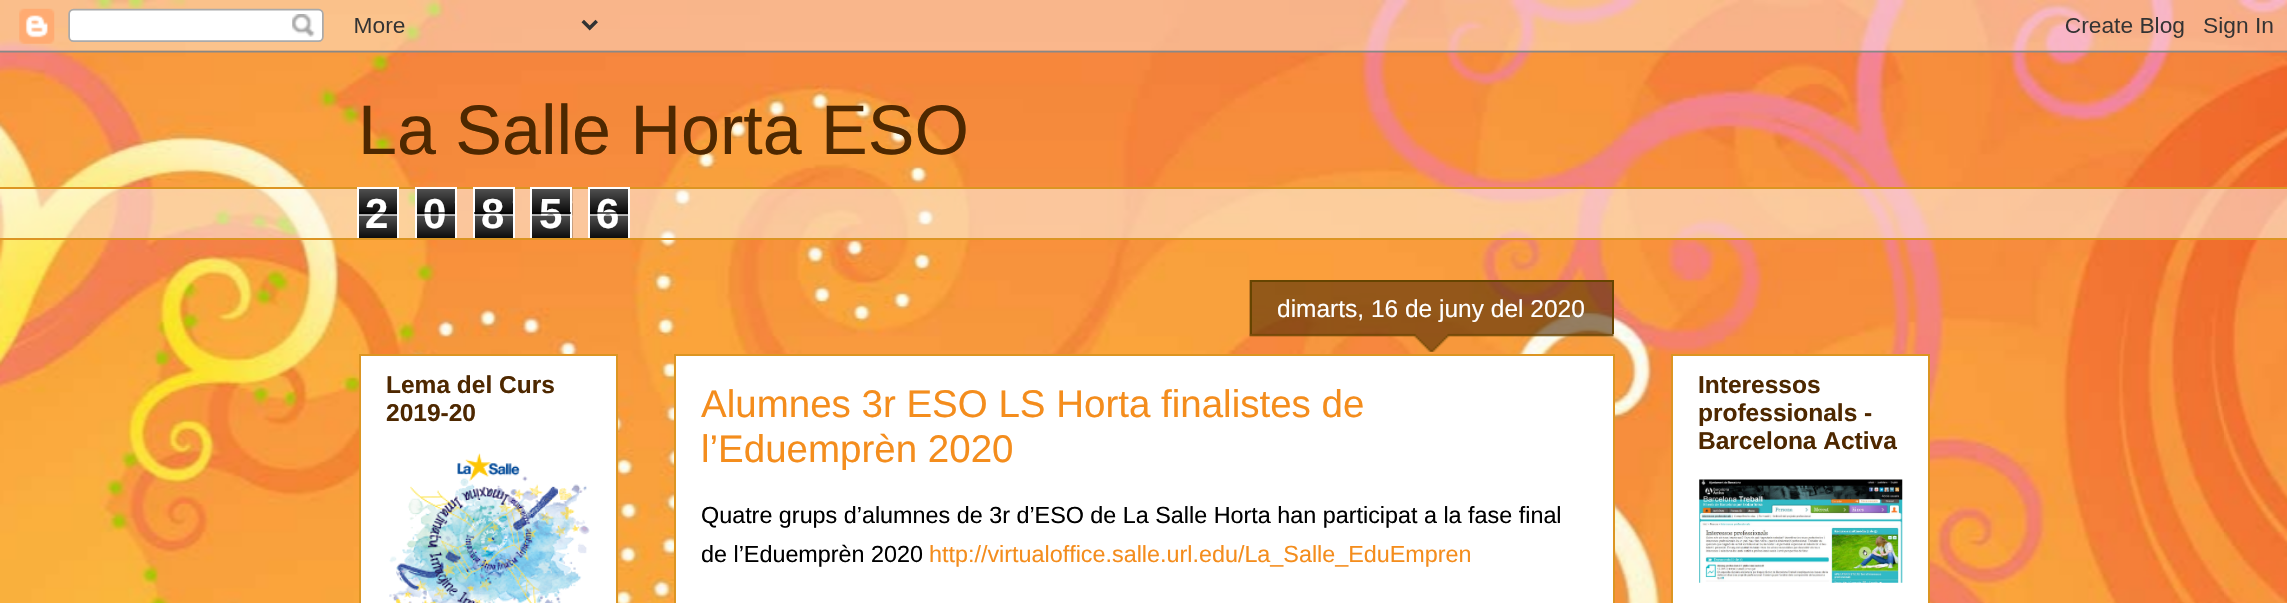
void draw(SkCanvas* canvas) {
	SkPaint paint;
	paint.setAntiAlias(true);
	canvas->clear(0xffffffff);
	canvas->drawImageRect(SkImages::DeferredFromEncodedData(SkData::MakeFromFileName("img1.png")), SkRect::MakeXYWH(0, 0, 2287, 603), SkSamplingOptions());
	canvas->drawImageRect(SkImages::DeferredFromEncodedData(SkData::MakeFromFileName("img2.png")), SkRect::MakeXYWH(0, 0, 2287, 53), SkSamplingOptions());
	SkFont f1(fontMgr->matchFamilyStyle("Liberation Sans", SkFontStyle::Normal()), 70);
	f1.setSubpixel(true);
	paint.setColor(0xff4e2800);
	canvas->drawString("La Salle Horta ESO", 358, 154, f1, paint);
	paint.setColor(0x7dffffff);
	canvas->drawRect(SkRect::MakeXYWH(0, 189, 2287, 49), paint);
	paint.setColor(0xffdc9522);
	canvas->drawRect(SkRect::MakeXYWH(0, 187, 2287, 2), paint);
	canvas->drawImageRect(SkImages::DeferredFromEncodedData(SkData::MakeFromFileName("img3.png")), SkRect::MakeXYWH(359, 189, 38, 49), SkSamplingOptions());
	paint.setStroke(true);
	paint.setStrokeWidth(2);
	paint.setColor(0xffffffff);
	canvas->drawRect(SkRect::MakeXYWH(358, 188, 40, 51), paint);
	SkFont f2(fontMgr->matchFamilyStyle("Liberation Sans", SkFontStyle::Bold()), 42);
	f2.setSubpixel(true);
	paint.setStroke(false);
	canvas->drawString("2", 365, 228, f2, paint);
	paint.setColor(0xa6000000);
	canvas->drawRect(SkRect::MakeXYWH(359, 212, 38, 2), paint);
	paint.setColor(0xa6ffffff);
	canvas->drawRect(SkRect::MakeXYWH(359, 214, 38, 2), paint);
	canvas->drawImageRect(SkImages::DeferredFromEncodedData(SkData::MakeFromFileName("img4.png")), SkRect::MakeXYWH(417, 189, 38, 49), SkSamplingOptions());
	paint.setStroke(true);
	paint.setColor(0xffffffff);
	canvas->drawRect(SkRect::MakeXYWH(416, 188, 40, 51), paint);
	paint.setStroke(false);
	canvas->drawString("0", 423, 228, f2, paint);
	paint.setColor(0xa6000000);
	canvas->drawRect(SkRect::MakeXYWH(417, 212, 38, 2), paint);
	paint.setColor(0xa6ffffff);
	canvas->drawRect(SkRect::MakeXYWH(417, 214, 38, 2), paint);
	canvas->drawImageRect(SkImages::DeferredFromEncodedData(SkData::MakeFromFileName("img5.png")), SkRect::MakeXYWH(475, 189, 38, 49), SkSamplingOptions());
	paint.setStroke(true);
	paint.setColor(0xffffffff);
	canvas->drawRect(SkRect::MakeXYWH(474, 188, 40, 51), paint);
	paint.setStroke(false);
	canvas->drawString("8", 481, 228, f2, paint);
	paint.setColor(0xa6000000);
	canvas->drawRect(SkRect::MakeXYWH(474, 212, 39, 2), paint);
	paint.setColor(0xa6ffffff);
	canvas->drawRect(SkRect::MakeXYWH(474, 214, 39, 2), paint);
	canvas->drawImageRect(SkImages::DeferredFromEncodedData(SkData::MakeFromFileName("img6.png")), SkRect::MakeXYWH(532, 189, 41, 49), SkSamplingOptions());
	paint.setStroke(true);
	paint.setColor(0xffffffff);
	canvas->drawRect(SkRect::MakeXYWH(531, 188, 40, 51), paint);
	paint.setStroke(false);
	canvas->drawString("5", 539, 228, f2, paint);
	paint.setColor(0xa6000000);
	canvas->drawRect(SkRect::MakeXYWH(532, 212, 39, 2), paint);
	paint.setColor(0xa6ffffff);
	canvas->drawRect(SkRect::MakeXYWH(532, 214, 39, 2), paint);
	canvas->drawImageRect(SkImages::DeferredFromEncodedData(SkData::MakeFromFileName("img3.png")), SkRect::MakeXYWH(590, 189, 38, 49), SkSamplingOptions());
	paint.setStroke(true);
	paint.setColor(0xffffffff);
	canvas->drawRect(SkRect::MakeXYWH(589, 188, 40, 51), paint);
	paint.setStroke(false);
	canvas->drawString("6", 596, 228, f2, paint);
	paint.setColor(0xa6000000);
	canvas->drawRect(SkRect::MakeXYWH(590, 212, 38, 2), paint);
	paint.setColor(0xa6ffffff);
	canvas->drawRect(SkRect::MakeXYWH(590, 214, 38, 2), paint);
	paint.setColor(0xffdc9522);
	canvas->drawRect(SkRect::MakeXYWH(0, 238, 2287, 2), paint);
	paint.setColor(0xffffffff);
	canvas->drawRect(SkRect::MakeXYWH(360, 355, 257, 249), paint);
	paint.setStroke(true);
	paint.setColor(0xffdc9522);
	canvas->drawRect(SkRect::MakeXYWH(360, 355, 257, 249), paint);
	SkFont f3(fontMgr->matchFamilyStyle("Liberation Sans", SkFontStyle::Bold()), 24.5);
	f3.setSubpixel(true);
	paint.setStroke(false);
	paint.setColor(0xff4e2800);
	canvas->drawString("Lema del Curs", 386, 393, f3, paint);
	canvas->drawString("2019-20", 386, 421, f3, paint);
	canvas->drawImageRect(SkImages::DeferredFromEncodedData(SkData::MakeFromFileName("img7.png")), SkRect::MakeXYWH(389, 453, 201, 150), SkSamplingOptions());
	paint.setColor(0xffffffff);
	canvas->drawRect(SkRect::MakeXYWH(675, 355, 939, 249), paint);
	paint.setStroke(true);
	paint.setColor(0xffdc9522);
	canvas->drawRect(SkRect::MakeXYWH(675, 355, 939, 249), paint);
	canvas->drawImageRect(SkImages::DeferredFromEncodedData(SkData::MakeFromFileName("img8.png")), SkRect::MakeXYWH(1249, 280, 365, 72), SkSamplingOptions());
	paint.setStroke(false);
	paint.setColor(0xff664400);
	canvas->drawRect(SkRect::MakeXYWH(1250, 280, 364, 2), paint);
	canvas->drawRect(SkRect::MakeXYWH(1612, 282, 2, 52), paint);
	canvas->drawRect(SkRect::MakeXYWH(1250, 282, 2, 52), paint);
	SkFont f4(fontMgr->matchFamilyStyle("Liberation Sans", SkFontStyle::Normal()), 24.5);
	f4.setSubpixel(true);
	paint.setColor(0xffffffff);
	canvas->drawString("dimarts, 16 de juny del 2020", 1277, 317, f4, paint);
	SkFont f5(fontMgr->matchFamilyStyle("Liberation Sans", SkFontStyle::Normal()), 38.5);
	f5.setSubpixel(true);
	paint.setColor(0xfff48d1d);
	canvas->drawString("Alumnes 3r ESO LS Horta finalistes de", 701, 417, f5, paint);
	canvas->drawString("l’Eduemprèn 2020", 701, 462, f5, paint);
	SkFont f6(fontMgr->matchFamilyStyle("Liberation Sans", SkFontStyle::Normal()), 23.35);
	f6.setSubpixel(true);
	paint.setColor(0xff000000);
	canvas->drawString("Quatre grups d’alumnes de 3r d’ESO de La Salle Horta han participat a la fase final", 701, 523, f6, paint);
	canvas->drawString("de l’Eduemprèn 2020", 701, 562, f6, paint);
	paint.setColor(0xfff48d1d);
	canvas->drawString("http://virtualoffice.salle.url.edu/La_Salle_EduEmpren", 929, 562, f6, paint);
	paint.setColor(0xffffffff);
	canvas->drawRect(SkRect::MakeXYWH(1672, 355, 257, 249), paint);
	paint.setStroke(true);
	paint.setColor(0xffdc9522);
	canvas->drawRect(SkRect::MakeXYWH(1672, 355, 257, 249), paint);
	paint.setStroke(false);
	paint.setColor(0xff4e2800);
	canvas->drawString("Interessos", 1698, 393, f3, paint);
	canvas->drawString("professionals -", 1698, 421, f3, paint);
	canvas->drawString("Barcelona Activa", 1698, 449, f3, paint);
	canvas->drawImageRect(SkImages::DeferredFromEncodedData(SkData::MakeFromFileName("img9.png")), SkRect::MakeXYWH(1699, 479, 204, 104), SkSamplingOptions());
}
